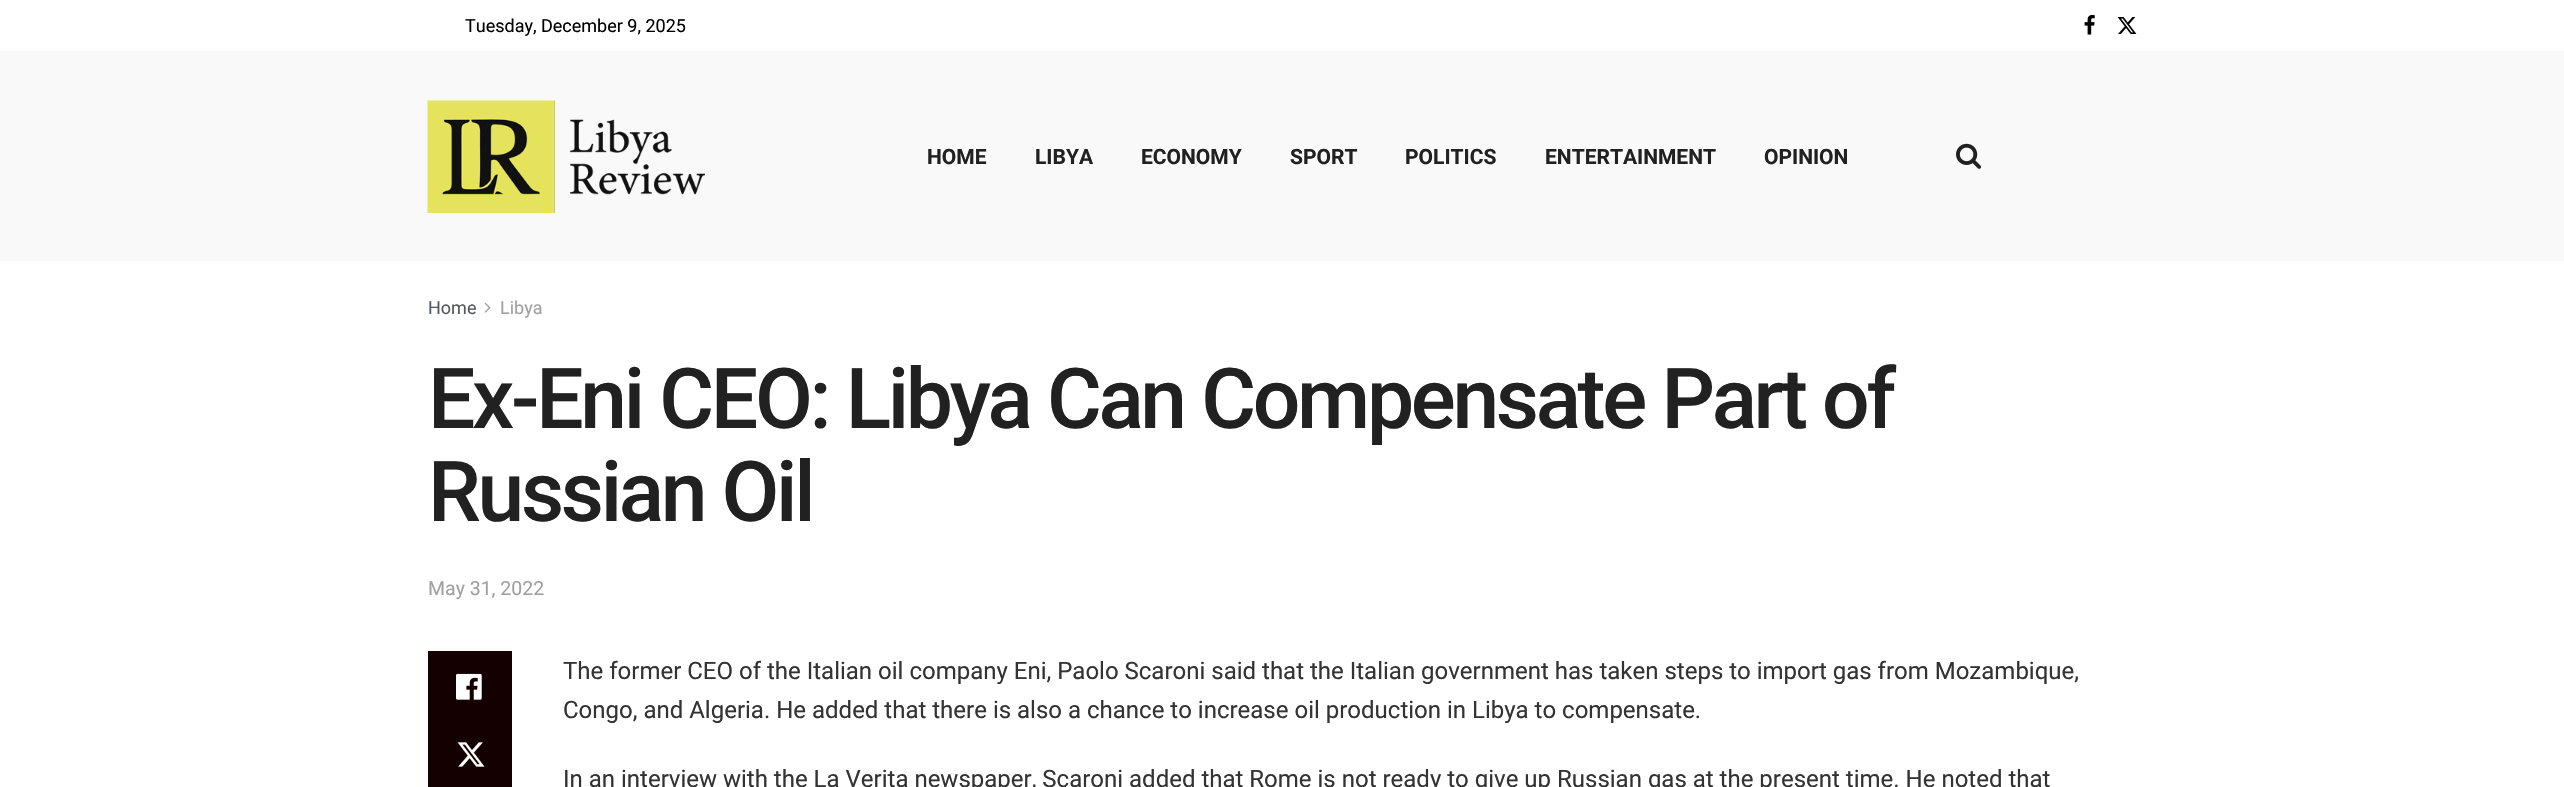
void draw(SkCanvas* canvas) {
	SkPaint paint;
	paint.setAntiAlias(true);
	auto spacedText = [&](const char* s, float x, float y, const SkFont& font, const SkPaint& ink, float letter, float word) {
		std::vector<SkGlyphID> glyphs(font.countText(s, strlen(s), SkTextEncoding::kUTF8));
		std::vector<float> xs(glyphs.size());
		font.textToGlyphs(s, strlen(s), SkTextEncoding::kUTF8, glyphs);
		font.getXPos(glyphs, xs, x);
		float extra = 0;
		for (size_t i = 0; i < glyphs.size(); i++) {
			xs[i] += extra;
			extra += letter + word * (glyphs[i] == font.unicharToGlyph(' '));
		}
		canvas->drawTextBlob(SkTextBlob::MakeFromPosHGlyphs(glyphs, xs, y, font), 0, 0, ink);
	};
	canvas->clear(0xffffffff);
	SkFont f1(fontMgr->matchFamilyStyle("Roboto", SkFontStyle::Normal()), 18);
	f1.setSubpixel(true);
	paint.setColor(0xff000000);
	canvas->drawString("Tuesday, December 9, 2025", 465, 32, f1, paint);
	canvas->drawImageRect(SkImages::DeferredFromEncodedData(SkData::MakeFromFileName("img1.png")), SkRect::MakeXYWH(2084, 15, 11, 20), SkSamplingOptions());
	canvas->drawImageRect(SkImages::DeferredFromEncodedData(SkData::MakeFromFileName("img2.png")), SkRect::MakeXYWH(2117, 17, 20, 17), SkSamplingOptions());
	paint.setColor(0xfff9f9f9);
	canvas->drawRect(SkRect::MakeXYWH(0, 51, 2564, 210), paint);
	canvas->drawImageRect(SkImages::DeferredFromEncodedData(SkData::MakeFromFileName("img3.png")), SkRect::MakeXYWH(427, 100, 278, 113), SkSamplingOptions());
	SkFont f2(fontMgr->matchFamilyStyle("Roboto", SkFontStyle::Bold()), 21);
	f2.setSubpixel(true);
	paint.setColor(0xff212121);
	canvas->drawString("HOME", 927, 164, f2, paint);
	canvas->drawString("LIBYA", 1035, 164, f2, paint);
	canvas->drawString("ECONOMY", 1141, 164, f2, paint);
	canvas->drawString("SPORT", 1290, 164, f2, paint);
	canvas->drawString("POLITICS", 1405, 164, f2, paint);
	canvas->drawString("ENTERTAINMENT", 1545, 164, f2, paint);
	canvas->drawString("OPINION", 1764, 164, f2, paint);
	canvas->drawImageRect(SkImages::DeferredFromEncodedData(SkData::MakeFromFileName("img4.png")), SkRect::MakeXYWH(1956, 143, 25, 26), SkSamplingOptions());
	paint.setColor(0xff53585c);
	canvas->drawString("Home", 428, 314, f1, paint);
	canvas->drawImageRect(SkImages::DeferredFromEncodedData(SkData::MakeFromFileName("img5.png")), SkRect::MakeXYWH(484, 302, 7, 11), SkSamplingOptions());
	paint.setColor(0xffa0a0a0);
	canvas->drawString("Libya", 500, 314, f1, paint);
	SkFont f3(fontMgr->matchFamilyStyle("Roboto", SkFontStyle(500, SkFontStyle::kNormal_Width, SkFontStyle::kUpright_Slant)), 84);
	f3.setSubpixel(true);
	paint.setColor(0xff212121);
	spacedText("Ex-Eni CEO: Libya Can Compensate Part of", 428, 428, f3, paint, -3.35, 0);
	spacedText("Russian Oil", 428, 521, f3, paint, -3.35, 0);
	SkFont f4(fontMgr->matchFamilyStyle("Roboto", SkFontStyle::Normal()), 19.5);
	f4.setSubpixel(true);
	paint.setColor(0xffa0a0a0);
	canvas->drawString("May 31, 2022", 428, 595, f4, paint);
	paint.setColor(0xff140000);
	canvas->drawRect(SkRect::MakeXYWH(428, 651, 84, 136), paint);
	canvas->drawImageRect(SkImages::DeferredFromEncodedData(SkData::MakeFromFileName("img6.png")), SkRect::MakeXYWH(456, 673, 26, 27), SkSamplingOptions());
	canvas->drawImageRect(SkImages::DeferredFromEncodedData(SkData::MakeFromFileName("img7.png")), SkRect::MakeXYWH(457, 742, 28, 25), SkSamplingOptions());
	SkFont f5(fontMgr->matchFamilyStyle("Roboto", SkFontStyle::Normal()), 24);
	f5.setSubpixel(true);
	paint.setColor(0xff333333);
	canvas->drawString("The former CEO of the Italian oil company Eni, Paolo Scaroni said that the Italian government has taken steps to import gas from Mozambique,", 563, 679, f5, paint);
	canvas->drawString("Congo, and Algeria. He added that there is also a chance to increase oil production in Libya to compensate.", 563, 718, f5, paint);
	canvas->drawString("In an interview with the La Verita newspaper, Scaroni added that Rome is not ready to give up Russian gas at the present time. He noted that", 563, 787, f5, paint);
}
